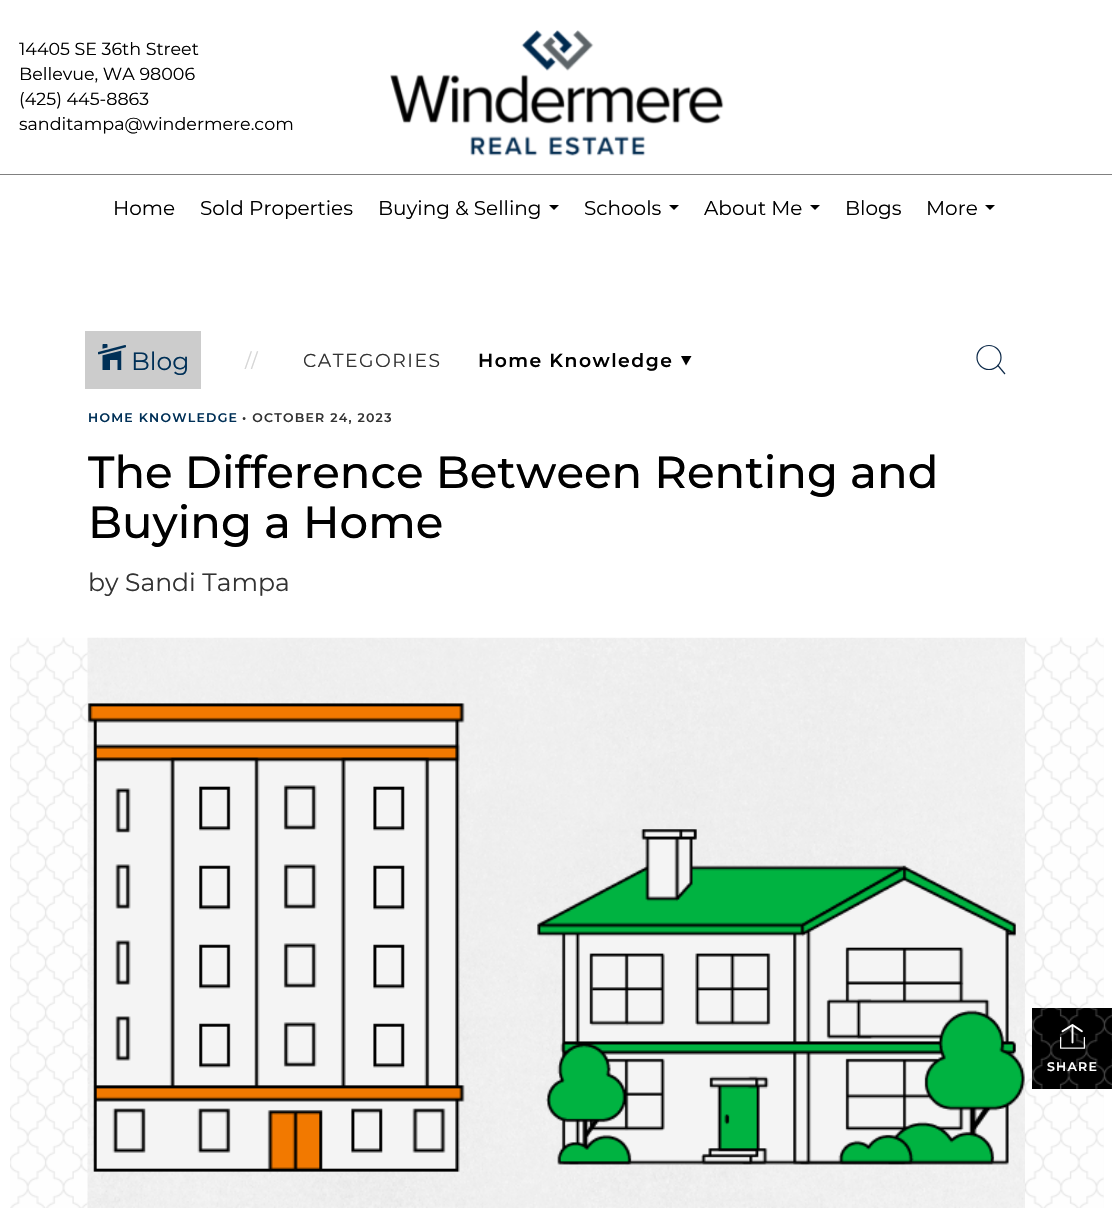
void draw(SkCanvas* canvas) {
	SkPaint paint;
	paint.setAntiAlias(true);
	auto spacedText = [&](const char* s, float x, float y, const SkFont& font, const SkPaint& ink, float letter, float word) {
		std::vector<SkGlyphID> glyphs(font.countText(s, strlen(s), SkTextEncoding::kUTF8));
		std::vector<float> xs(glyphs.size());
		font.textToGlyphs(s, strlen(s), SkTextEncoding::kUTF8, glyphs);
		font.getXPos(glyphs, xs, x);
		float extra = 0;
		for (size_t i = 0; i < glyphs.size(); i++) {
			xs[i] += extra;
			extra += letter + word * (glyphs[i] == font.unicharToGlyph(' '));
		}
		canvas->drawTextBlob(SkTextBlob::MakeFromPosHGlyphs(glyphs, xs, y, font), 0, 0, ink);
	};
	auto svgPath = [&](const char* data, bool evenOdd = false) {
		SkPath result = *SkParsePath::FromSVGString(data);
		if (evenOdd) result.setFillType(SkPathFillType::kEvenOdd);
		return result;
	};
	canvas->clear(0xffffffff);
	paint.setColor(0xff808080);
	canvas->drawRect(SkRect::MakeXYWH(0, 174, 1112, 1), paint);
	SkFont f1(fontMgr->matchFamilyStyle("Montserrat", SkFontStyle::Normal()), 17.5);
	f1.setSubpixel(true);
	paint.setColor(0xff000000);
	canvas->drawString("14405 SE 36th Street", 19, 55, f1, paint);
	canvas->drawString("Bellevue, WA 98006", 19, 80, f1, paint);
	canvas->drawString("(425) 445-8863", 19, 105, f1, paint);
	canvas->drawString("sanditampa@windermere.com", 19, 130, f1, paint);
	canvas->drawImageRect(SkImages::DeferredFromEncodedData(SkData::MakeFromFileName("img1.png")), SkRect::MakeXYWH(390, 30, 334, 126), SkSamplingOptions());
	SkFont f2(fontMgr->matchFamilyStyle("Montserrat", SkFontStyle::Normal()), 20);
	f2.setSubpixel(true);
	canvas->drawString("Home", 113, 215, f2, paint);
	canvas->drawString("Sold Properties", 200, 215, f2, paint);
	canvas->drawString("Buying & Selling", 378, 215, f2, paint);
	canvas->drawPath(svgPath("M549 205H559L554 210Z"), paint);
	canvas->drawString("Schools", 584, 215, f2, paint);
	canvas->drawPath(svgPath("M669 205H679L674 210Z"), paint);
	canvas->drawString("About Me", 704, 215, f2, paint);
	canvas->drawPath(svgPath("M810 205H820L815 210Z"), paint);
	canvas->drawString("Blogs", 845, 215, f2, paint);
	canvas->drawString("More", 926, 215, f2, paint);
	canvas->drawPath(svgPath("M985 205H995L990 210Z"), paint);
	paint.setColor(0xfffcfcfc);
	canvas->drawRect(SkRect::MakeXYWH(10, 638, 1094, 570), paint);
	canvas->drawImageRect(SkImages::DeferredFromEncodedData(SkData::MakeFromFileName("img3.png")), SkRect::MakeXYWH(10, 637, 1094, 571), SkSamplingOptions());
	paint.setColor(0xffffffff);
	canvas->drawRect(SkRect::MakeXYWH(98, 637, 927, 1), paint);
	paint.setColor(0xffcccccc);
	canvas->drawRect(SkRect::MakeXYWH(85, 331, 116, 58), paint);
	canvas->drawImageRect(SkImages::DeferredFromEncodedData(SkData::MakeFromFileName("img2.png")), SkRect::MakeXYWH(98, 344, 28, 26), SkSamplingOptions());
	SkFont f3(fontMgr->matchFamilyStyle("Montserrat", SkFontStyle::Normal()), 25);
	f3.setSubpixel(true);
	paint.setColor(0xff003057);
	canvas->drawString("Blog", 131, 370, f3, paint);
	SkFont f4(fontMgr->matchFamilyStyle("Montserrat", SkFontStyle::Normal()), 18.75);
	f4.setSubpixel(true);
	paint.setColor(0xffd5d5d5);
	canvas->drawString("//", 245, 367, f4, paint);
	paint.setColor(0xff333333);
	spacedText("CATEGORIES", 303, 367, f4, paint, 1.5, 0);
	paint.setColor(0xff000000);
	canvas->drawPath(svgPath("M686 365.5L691.5 356H681Z"), paint);
	SkFont f5(fontMgr->matchFamilyStyle("Montserrat", SkFontStyle(600, SkFontStyle::kNormal_Width, SkFontStyle::kUpright_Slant)), 18.75);
	f5.setSubpixel(true);
	spacedText("Home Knowledge", 478, 367, f5, paint, 1.5, 0);
	paint.setStroke(true);
	paint.setStrokeWidth(1.2);
	paint.setColor(0xff0e2b4a);
	canvas->drawCircle(989, 357.5, 12, paint);
	canvas->drawPath(svgPath("M997.5 365L1005 374"), paint);
	SkFont f6(fontMgr->matchFamilyStyle("Montserrat", SkFontStyle(600, SkFontStyle::kNormal_Width, SkFontStyle::kUpright_Slant)), 12.5);
	f6.setSubpixel(true);
	paint.setStroke(false);
	paint.setColor(0xff003057);
	spacedText("HOME KNOWLEDGE", 88, 422, f6, paint, 1.25, 0);
	paint.setColor(0xff333333);
	spacedText("• OCTOBER 24, 2023", 242, 422, f6, paint, 1.25, 0);
	SkFont f7(fontMgr->matchFamilyStyle("Montserrat", SkFontStyle(500, SkFontStyle::kNormal_Width, SkFontStyle::kUpright_Slant)), 45);
	f7.setSubpixel(true);
	paint.setColor(0xff000000);
	canvas->drawString("The Difference Between Renting and", 88, 488, f7, paint);
	canvas->drawString("Buying a Home", 88, 538, f7, paint);
	paint.setColor(0xff333333);
	canvas->drawString("by Sandi Tampa", 88, 591, f3, paint);
	canvas->drawImageRect(SkImages::DeferredFromEncodedData(SkData::MakeFromFileName("img4.png")), SkRect::MakeXYWH(87, 637, 938, 571), SkSamplingOptions());
	canvas->drawImageRect(SkImages::DeferredFromEncodedData(SkData::MakeFromFileName("img5.png")), SkRect::MakeXYWH(1032, 1008, 80, 81), SkSamplingOptions());
	canvas->drawImageRect(SkImages::DeferredFromEncodedData(SkData::MakeFromFileName("img6.png")), SkRect::MakeXYWH(1060, 1024, 25, 25), SkSamplingOptions());
	paint.setColor(0xffffffff);
	spacedText("SHARE", 1047, 1071, f6, paint, 1.25, 0);
}
